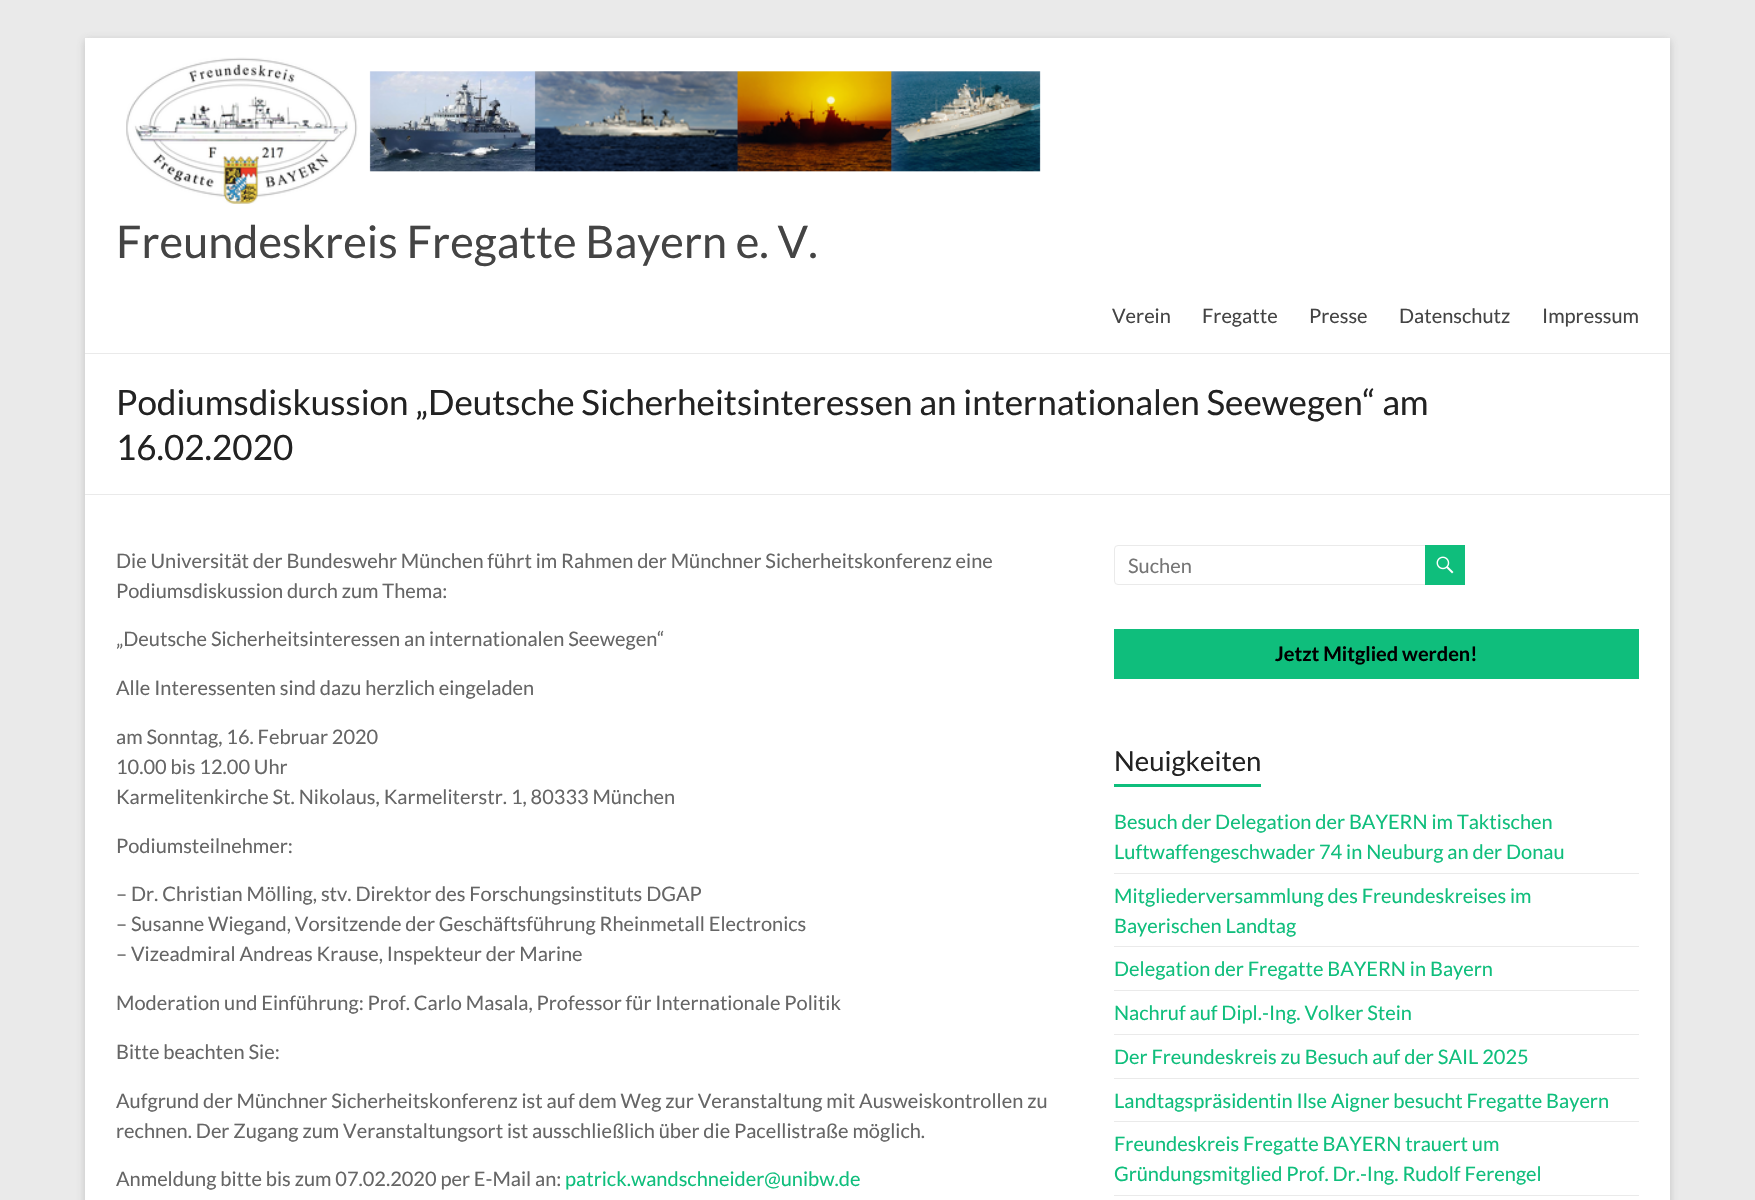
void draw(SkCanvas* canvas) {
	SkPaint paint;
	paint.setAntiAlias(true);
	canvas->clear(0xffeaeaea);
	paint.setColor(0x4d646464);
	paint.setMaskFilter(SkMaskFilter::MakeBlur(kNormal_SkBlurStyle, 4));
	canvas->drawRect(SkRect::MakeXYWH(85, 40, 1585, 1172), paint);
	paint.setMaskFilter(nullptr);
	paint.setColor(0xffffffff);
	canvas->drawRect(SkRect::MakeXYWH(85, 38, 1585, 1162), paint);
	paint.setColor(0xffeaeaea);
	canvas->drawRect(SkRect::MakeXYWH(85, 353, 1585, 1), paint);
	canvas->drawImageRect(SkImages::DeferredFromEncodedData(SkData::MakeFromFileName("img1.png")), SkRect::MakeXYWH(126, 57, 915, 147), SkSamplingOptions());
	SkFont f1(fontMgr->matchFamilyStyle("Lato", SkFontStyle::Normal()), 45);
	f1.setSubpixel(true);
	paint.setColor(0xff444444);
	canvas->drawString("Freundeskreis Fregatte Bayern e. V.", 116, 258, f1, paint);
	SkFont f2(fontMgr->matchFamilyStyle("Lato", SkFontStyle::Normal()), 20);
	f2.setSubpixel(true);
	canvas->drawString("Verein", 1112, 323, f2, paint);
	canvas->drawString("Fregatte", 1202, 323, f2, paint);
	canvas->drawString("Presse", 1309, 323, f2, paint);
	canvas->drawString("Datenschutz", 1399, 323, f2, paint);
	canvas->drawString("Impressum", 1542, 323, f2, paint);
	paint.setColor(0xffeaeaea);
	canvas->drawRect(SkRect::MakeXYWH(85, 494, 1585, 1), paint);
	SkFont f3(fontMgr->matchFamilyStyle("Lato", SkFontStyle::Normal()), 35);
	f3.setSubpixel(true);
	paint.setColor(0xff222222);
	canvas->drawString("Podiumsdiskussion „Deutsche Sicherheitsinteressen an internationalen Seewegen“ am", 116, 415, f3, paint);
	canvas->drawString("16.02.2020", 116, 460, f3, paint);
	paint.setColor(0xff666666);
	canvas->drawString("Die Universität der Bundeswehr München führt im Rahmen der Münchner Sicherheitskonferenz eine", 116, 568, f2, paint);
	canvas->drawString("Podiumsdiskussion durch zum Thema:", 116, 598, f2, paint);
	canvas->drawString("„Deutsche Sicherheitsinteressen an internationalen Seewegen“", 116, 646, f2, paint);
	canvas->drawString("Alle Interessenten sind dazu herzlich eingeladen", 116, 695, f2, paint);
	canvas->drawString("am Sonntag, 16. Februar 2020", 116, 744, f2, paint);
	canvas->drawString("10.00 bis 12.00 Uhr", 116, 774, f2, paint);
	canvas->drawString("Karmelitenkirche St. Nikolaus, Karmeliterstr. 1, 80333 München", 116, 804, f2, paint);
	canvas->drawString("Podiumsteilnehmer:", 116, 853, f2, paint);
	canvas->drawString("– Dr. Christian Mölling, stv. Direktor des Forschungsinstituts DGAP", 116, 901, f2, paint);
	canvas->drawString("– Susanne Wiegand, Vorsitzende der Geschäftsführung Rheinmetall Electronics", 116, 931, f2, paint);
	canvas->drawString("– Vizeadmiral Andreas Krause, Inspekteur der Marine", 116, 961, f2, paint);
	canvas->drawString("Moderation und Einführung: Prof. Carlo Masala, Professor für Internationale Politik", 116, 1010, f2, paint);
	canvas->drawString("Bitte beachten Sie:", 116, 1059, f2, paint);
	canvas->drawString("Aufgrund der Münchner Sicherheitskonferenz ist auf dem Weg zur Veranstaltung mit Ausweiskontrollen zu", 116, 1108, f2, paint);
	canvas->drawString("rechnen. Der Zugang zum Veranstaltungsort ist ausschließlich über die Pacellistraße möglich.", 116, 1138, f2, paint);
	canvas->drawString("Anmeldung bitte bis zum 07.02.2020 per E-Mail an:", 116, 1186, f2, paint);
	paint.setColor(0xff0fbe7c);
	canvas->drawString("patrick.wandschneider@unibw.de", 565, 1186, f2, paint);
	paint.setStroke(true);
	paint.setStrokeWidth(1);
	paint.setColor(0xffeaeaea);
	canvas->drawRoundRect(SkRect::MakeXYWH(1114.5, 545.5, 314, 39), 3.5, 3.5, paint);
	paint.setStroke(false);
	paint.setColor(0xff757575);
	canvas->drawString("Suchen", 1128, 573, f2, paint);
	paint.setColor(0xff0fbe7c);
	canvas->drawRect(SkRect::MakeXYWH(1425, 545, 40, 40), paint);
	canvas->drawImageRect(SkImages::DeferredFromEncodedData(SkData::MakeFromFileName("img2.png")), SkRect::MakeXYWH(1436, 556, 18, 18), SkSamplingOptions());
	canvas->drawRect(SkRect::MakeXYWH(1114, 629, 525, 50), paint);
	SkFont f4(fontMgr->matchFamilyStyle("Lato", SkFontStyle::Bold()), 20);
	f4.setSubpixel(true);
	paint.setColor(0xff000000);
	canvas->drawString("Jetzt Mitglied werden!", 1275, 661, f4, paint);
	SkFont f5(fontMgr->matchFamilyStyle("Lato", SkFontStyle::Normal()), 27.5);
	f5.setSubpixel(true);
	paint.setColor(0xff222222);
	canvas->drawString("Neuigkeiten", 1114, 771, f5, paint);
	paint.setColor(0xff0fbe7c);
	canvas->drawRect(SkRect::MakeXYWH(1114, 784, 147, 3), paint);
	paint.setColor(0xffeaeaea);
	canvas->drawRect(SkRect::MakeXYWH(1114, 873, 525, 1), paint);
	paint.setColor(0xff0fbe7c);
	canvas->drawString("Besuch der Delegation der BAYERN im Taktischen", 1114, 829, f2, paint);
	canvas->drawString("Luftwaffengeschwader 74 in Neuburg an der Donau", 1114, 859, f2, paint);
	paint.setColor(0xffeaeaea);
	canvas->drawRect(SkRect::MakeXYWH(1114, 946, 525, 1), paint);
	paint.setColor(0xff0fbe7c);
	canvas->drawString("Mitgliederversammlung des Freundeskreises im", 1114, 903, f2, paint);
	canvas->drawString("Bayerischen Landtag", 1114, 933, f2, paint);
	paint.setColor(0xffeaeaea);
	canvas->drawRect(SkRect::MakeXYWH(1114, 990, 525, 1), paint);
	paint.setColor(0xff0fbe7c);
	canvas->drawString("Delegation der Fregatte BAYERN in Bayern", 1114, 976, f2, paint);
	paint.setColor(0xffeaeaea);
	canvas->drawRect(SkRect::MakeXYWH(1114, 1034, 525, 1), paint);
	paint.setColor(0xff0fbe7c);
	canvas->drawString("Nachruf auf Dipl.-Ing. Volker Stein", 1114, 1020, f2, paint);
	paint.setColor(0xffeaeaea);
	canvas->drawRect(SkRect::MakeXYWH(1114, 1078, 525, 1), paint);
	paint.setColor(0xff0fbe7c);
	canvas->drawString("Der Freundeskreis zu Besuch auf der SAIL 2025", 1114, 1064, f2, paint);
	paint.setColor(0xffeaeaea);
	canvas->drawRect(SkRect::MakeXYWH(1114, 1121, 525, 1), paint);
	paint.setColor(0xff0fbe7c);
	canvas->drawString("Landtagspräsidentin Ilse Aigner besucht Fregatte Bayern", 1114, 1108, f2, paint);
	paint.setColor(0xffeaeaea);
	canvas->drawRect(SkRect::MakeXYWH(1114, 1195, 525, 1), paint);
	paint.setColor(0xff0fbe7c);
	canvas->drawString("Freundeskreis Fregatte BAYERN trauert um", 1114, 1151, f2, paint);
	canvas->drawString("Gründungsmitglied Prof. Dr.-Ing. Rudolf Ferengel", 1114, 1181, f2, paint);
}
